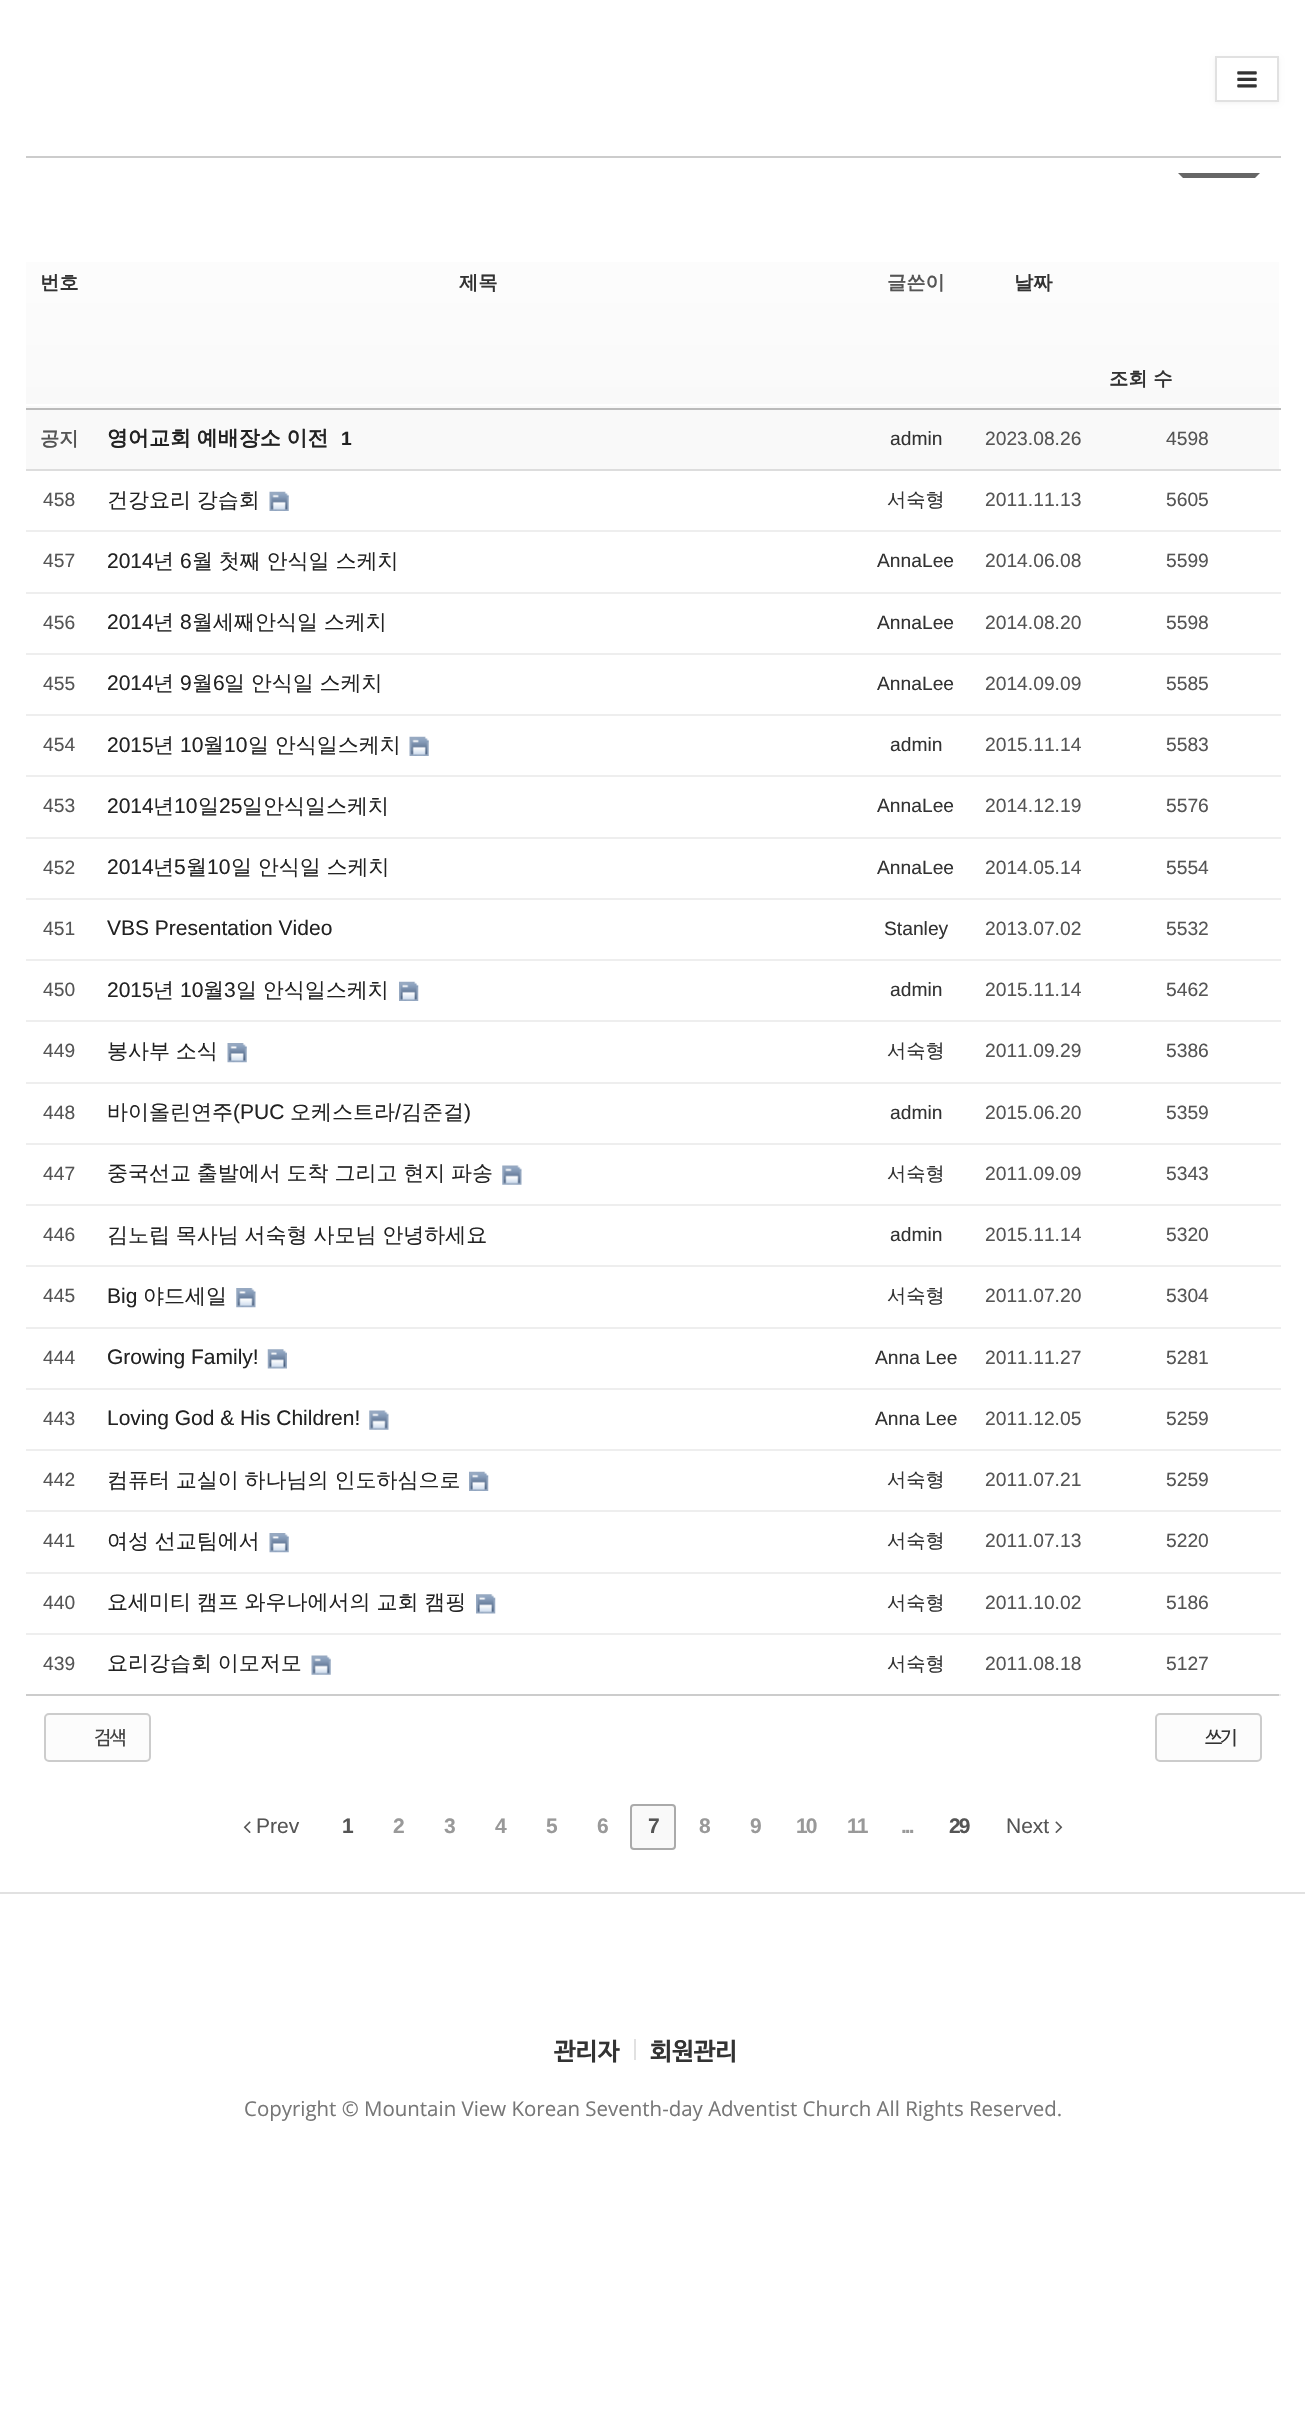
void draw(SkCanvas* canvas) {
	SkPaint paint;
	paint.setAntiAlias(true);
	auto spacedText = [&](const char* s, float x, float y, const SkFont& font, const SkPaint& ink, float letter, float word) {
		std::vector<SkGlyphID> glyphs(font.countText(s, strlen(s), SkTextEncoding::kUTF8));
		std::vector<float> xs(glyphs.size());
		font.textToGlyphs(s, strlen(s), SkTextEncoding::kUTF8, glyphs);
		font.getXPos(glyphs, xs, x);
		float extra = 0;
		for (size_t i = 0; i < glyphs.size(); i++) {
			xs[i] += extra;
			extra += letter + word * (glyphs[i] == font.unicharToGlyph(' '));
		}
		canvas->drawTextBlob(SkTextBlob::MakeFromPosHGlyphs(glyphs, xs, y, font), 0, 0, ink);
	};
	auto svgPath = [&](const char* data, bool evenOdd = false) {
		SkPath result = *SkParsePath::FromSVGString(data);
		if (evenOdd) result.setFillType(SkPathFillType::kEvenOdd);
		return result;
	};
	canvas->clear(0xffffffff);
	paint.setColor(0x0d000000);
	paint.setMaskFilter(SkMaskFilter::MakeBlur(kNormal_SkBlurStyle, 2));
	canvas->drawRect(SkRect::MakeXYWH(1215, 58, 64, 45), paint);
	paint.setMaskFilter(nullptr);
	paint.setColor(0xffffffff);
	canvas->drawRect(SkRect::MakeXYWH(1216, 57, 62, 44), paint);
	paint.setStroke(true);
	paint.setStrokeWidth(2);
	paint.setColor(0xffe1e1e1);
	canvas->drawRect(SkRect::MakeXYWH(1216, 57, 62, 44), paint);
	canvas->drawImageRect(SkImages::DeferredFromEncodedData(SkData::MakeFromFileName("img1.png")), SkRect::MakeXYWH(1237, 71, 20, 17), SkSamplingOptions());
	paint.setStroke(false);
	{
		const SkColor colors[] = {0xffffffff, 0xfff9f9f9};
		const float stops[] = {0, 1};
		const SkPoint ends[] = {{653, 157}, {653, 408}};
		paint.setShader(SkGradientShader::MakeLinear(ends, colors, stops, 2, SkTileMode::kClamp));
		paint.setAlpha(255);
	}
	canvas->drawRect(SkRect::MakeXYWH(26, 262, 1253, 146), paint);
	paint.setShader(nullptr);
	paint.setColor(0xffffffff);
	canvas->drawRect(SkRect::MakeXYWH(26, 404, 1253, 2), paint);
	SkFont f1(fontMgr->matchFamilyStyle("WenQuanYi Zen Hei", SkFontStyle::Bold()), 19.25);
	f1.setSubpixel(true);
	paint.setColor(0xff333333);
	canvas->drawString("번호", 40, 289, f1, paint);
	canvas->drawString("제목", 459, 289, f1, paint);
	paint.setColor(0xff555555);
	canvas->drawString("글쓴이", 887, 289, f1, paint);
	paint.setColor(0xff333333);
	canvas->drawString("날짜", 1014, 289, f1, paint);
	paint.setColor(0xffcccccc);
	canvas->drawRect(SkRect::MakeXYWH(26, 156, 1255, 2), paint);
	paint.setColor(0xffbbbbbb);
	canvas->drawRect(SkRect::MakeXYWH(26, 408, 1255, 2), paint);
	paint.setColor(0xff666666);
	canvas->drawPath(svgPath("M1178 173H1260L1255 178H1183Z"), paint);
	paint.setColor(0xff333333);
	canvas->drawString("조회 수", 1109, 385, f1, paint);
	paint.setColor(0xfff9f9f9);
	canvas->drawRect(SkRect::MakeXYWH(26, 410, 1253, 59), paint);
	paint.setColor(0xff555555);
	canvas->drawString("공지", 40, 445, f1, paint);
	SkFont f2(fontMgr->matchFamilyStyle("WenQuanYi Zen Hei", SkFontStyle::Bold()), 21);
	f2.setSubpixel(true);
	paint.setColor(0xff222222);
	spacedText("영어교회 예배장소 이전", 107, 445, f2, paint, 0, -0.5);
	SkFont f3(fontMgr->matchFamilyStyle("Liberation Sans", SkFontStyle::Bold()), 19.25);
	f3.setSubpixel(true);
	canvas->drawString("1", 341, 445, f3, paint);
	SkFont f4(fontMgr->matchFamilyStyle("Liberation Sans", SkFontStyle::Normal()), 19.25);
	f4.setSubpixel(true);
	paint.setColor(0xff333333);
	canvas->drawString("admin", 890, 445, f4, paint);
	paint.setColor(0xff555555);
	canvas->drawString("2023.08.26", 985, 445, f4, paint);
	paint.setColor(0xffdddddd);
	canvas->drawRect(SkRect::MakeXYWH(26, 469, 1255, 2), paint);
	paint.setColor(0xff555555);
	canvas->drawString("4598", 1166, 445, f4, paint);
	canvas->drawString("458", 43, 506, f4, paint);
	SkFont f5(fontMgr->matchFamilyStyle("WenQuanYi Zen Hei", SkFontStyle(500, SkFontStyle::kNormal_Width, SkFontStyle::kUpright_Slant)), 21);
	f5.setSubpixel(true);
	paint.setColor(0xff222222);
	spacedText("건강요리 강습회", 107, 507, f5, paint, 0, -0.5);
	canvas->drawImageRect(SkImages::DeferredFromEncodedData(SkData::MakeFromFileName("img2.png")), SkRect::MakeXYWH(269, 491, 20, 20), SkSamplingOptions());
	SkFont f6(fontMgr->matchFamilyStyle("WenQuanYi Zen Hei", SkFontStyle(500, SkFontStyle::kNormal_Width, SkFontStyle::kUpright_Slant)), 19.25);
	f6.setSubpixel(true);
	paint.setColor(0xff333333);
	canvas->drawString("서숙형", 887, 506, f6, paint);
	paint.setColor(0xff555555);
	canvas->drawString("2011.11.13", 985, 506, f4, paint);
	paint.setColor(0xffeeeeee);
	canvas->drawRect(SkRect::MakeXYWH(26, 530, 1255, 2), paint);
	paint.setColor(0xff555555);
	canvas->drawString("5605", 1166, 506, f4, paint);
	canvas->drawString("457", 43, 567, f4, paint);
	SkFont f7(fontMgr->matchFamilyStyle("Liberation Sans", SkFontStyle::Normal()), 21);
	f7.setSubpixel(true);
	paint.setColor(0xff222222);
	canvas->drawString("2014", 107, 568, f7, paint);
	canvas->drawString("년", 153, 568, f5, paint);
	canvas->drawString("6", 180, 568, f7, paint);
	spacedText("월 첫째 안식일 스케치", 192, 568, f5, paint, 0, -0.5);
	paint.setColor(0xff333333);
	canvas->drawString("AnnaLee", 877, 567, f4, paint);
	paint.setColor(0xff555555);
	canvas->drawString("2014.06.08", 985, 567, f4, paint);
	paint.setColor(0xffeeeeee);
	canvas->drawRect(SkRect::MakeXYWH(26, 592, 1255, 2), paint);
	paint.setColor(0xff555555);
	canvas->drawString("5599", 1166, 567, f4, paint);
	canvas->drawString("456", 43, 629, f4, paint);
	paint.setColor(0xff222222);
	canvas->drawString("2014", 107, 629, f7, paint);
	canvas->drawString("년", 153, 629, f5, paint);
	canvas->drawString("8", 180, 629, f7, paint);
	spacedText("월세째안식일 스케치", 192, 629, f5, paint, 0, -0.5);
	paint.setColor(0xff333333);
	canvas->drawString("AnnaLee", 877, 629, f4, paint);
	paint.setColor(0xff555555);
	canvas->drawString("2014.08.20", 985, 629, f4, paint);
	paint.setColor(0xffeeeeee);
	canvas->drawRect(SkRect::MakeXYWH(26, 653, 1255, 2), paint);
	paint.setColor(0xff555555);
	canvas->drawString("5598", 1166, 629, f4, paint);
	canvas->drawString("455", 43, 690, f4, paint);
	paint.setColor(0xff222222);
	canvas->drawString("2014", 107, 690, f7, paint);
	canvas->drawString("년", 153, 690, f5, paint);
	canvas->drawString("9", 180, 690, f7, paint);
	canvas->drawString("월", 192, 690, f5, paint);
	canvas->drawString("6", 213, 690, f7, paint);
	spacedText("일 안식일 스케치", 224, 690, f5, paint, 0, -0.5);
	paint.setColor(0xff333333);
	canvas->drawString("AnnaLee", 877, 690, f4, paint);
	paint.setColor(0xff555555);
	canvas->drawString("2014.09.09", 985, 690, f4, paint);
	paint.setColor(0xffeeeeee);
	canvas->drawRect(SkRect::MakeXYWH(26, 714, 1255, 2), paint);
	paint.setColor(0xff555555);
	canvas->drawString("5585", 1166, 690, f4, paint);
	canvas->drawString("454", 43, 751, f4, paint);
	paint.setColor(0xff222222);
	canvas->drawString("2015", 107, 752, f7, paint);
	canvas->drawString("년", 153, 752, f5, paint);
	canvas->drawString("10", 180, 752, f7, paint);
	canvas->drawString("월", 203, 752, f5, paint);
	canvas->drawString("10", 224, 752, f7, paint);
	spacedText("일 안식일스케치", 248, 752, f5, paint, 0, -0.5);
	canvas->drawImageRect(SkImages::DeferredFromEncodedData(SkData::MakeFromFileName("img2.png")), SkRect::MakeXYWH(409, 736, 20, 20), SkSamplingOptions());
	paint.setColor(0xff333333);
	canvas->drawString("admin", 890, 751, f4, paint);
	paint.setColor(0xff555555);
	canvas->drawString("2015.11.14", 985, 751, f4, paint);
	paint.setColor(0xffeeeeee);
	canvas->drawRect(SkRect::MakeXYWH(26, 775, 1255, 2), paint);
	paint.setColor(0xff555555);
	canvas->drawString("5583", 1166, 751, f4, paint);
	canvas->drawString("453", 43, 812, f4, paint);
	paint.setColor(0xff222222);
	canvas->drawString("2014", 107, 813, f7, paint);
	canvas->drawString("년", 153, 813, f5, paint);
	canvas->drawString("10", 174, 813, f7, paint);
	canvas->drawString("일", 198, 813, f5, paint);
	canvas->drawString("25", 219, 813, f7, paint);
	canvas->drawString("일안식일스케치", 242, 813, f5, paint);
	paint.setColor(0xff333333);
	canvas->drawString("AnnaLee", 877, 812, f4, paint);
	paint.setColor(0xff555555);
	canvas->drawString("2014.12.19", 985, 812, f4, paint);
	paint.setColor(0xffeeeeee);
	canvas->drawRect(SkRect::MakeXYWH(26, 837, 1255, 2), paint);
	paint.setColor(0xff555555);
	canvas->drawString("5576", 1166, 812, f4, paint);
	canvas->drawString("452", 43, 874, f4, paint);
	paint.setColor(0xff222222);
	canvas->drawString("2014", 107, 874, f7, paint);
	canvas->drawString("년", 153, 874, f5, paint);
	canvas->drawString("5", 174, 874, f7, paint);
	canvas->drawString("월", 186, 874, f5, paint);
	canvas->drawString("10", 207, 874, f7, paint);
	spacedText("일 안식일 스케치", 231, 874, f5, paint, 0, -0.5);
	paint.setColor(0xff333333);
	canvas->drawString("AnnaLee", 877, 874, f4, paint);
	paint.setColor(0xff555555);
	canvas->drawString("2014.05.14", 985, 874, f4, paint);
	paint.setColor(0xffeeeeee);
	canvas->drawRect(SkRect::MakeXYWH(26, 898, 1255, 2), paint);
	paint.setColor(0xff555555);
	canvas->drawString("5554", 1166, 874, f4, paint);
	canvas->drawString("451", 43, 935, f4, paint);
	paint.setColor(0xff222222);
	canvas->drawString("VBS Presentation Video", 107, 935, f7, paint);
	paint.setColor(0xff333333);
	canvas->drawString("Stanley", 884, 935, f4, paint);
	paint.setColor(0xff555555);
	canvas->drawString("2013.07.02", 985, 935, f4, paint);
	paint.setColor(0xffeeeeee);
	canvas->drawRect(SkRect::MakeXYWH(26, 959, 1255, 2), paint);
	paint.setColor(0xff555555);
	canvas->drawString("5532", 1166, 935, f4, paint);
	canvas->drawString("450", 43, 996, f4, paint);
	paint.setColor(0xff222222);
	canvas->drawString("2015", 107, 997, f7, paint);
	canvas->drawString("년", 153, 997, f5, paint);
	canvas->drawString("10", 180, 997, f7, paint);
	canvas->drawString("월", 203, 997, f5, paint);
	canvas->drawString("3", 224, 997, f7, paint);
	spacedText("일 안식일스케치", 236, 997, f5, paint, 0, -0.5);
	canvas->drawImageRect(SkImages::DeferredFromEncodedData(SkData::MakeFromFileName("img3.png")), SkRect::MakeXYWH(399, 981, 20, 20), SkSamplingOptions());
	paint.setColor(0xff333333);
	canvas->drawString("admin", 890, 996, f4, paint);
	paint.setColor(0xff555555);
	canvas->drawString("2015.11.14", 985, 996, f4, paint);
	paint.setColor(0xffeeeeee);
	canvas->drawRect(SkRect::MakeXYWH(26, 1020, 1255, 2), paint);
	paint.setColor(0xff555555);
	canvas->drawString("5462", 1166, 996, f4, paint);
	canvas->drawString("449", 43, 1057, f4, paint);
	paint.setColor(0xff222222);
	spacedText("봉사부 소식", 107, 1058, f5, paint, 0, -0.5);
	canvas->drawImageRect(SkImages::DeferredFromEncodedData(SkData::MakeFromFileName("img4.png")), SkRect::MakeXYWH(227, 1043, 20, 20), SkSamplingOptions());
	paint.setColor(0xff333333);
	canvas->drawString("서숙형", 887, 1057, f6, paint);
	paint.setColor(0xff555555);
	canvas->drawString("2011.09.29", 985, 1057, f4, paint);
	paint.setColor(0xffeeeeee);
	canvas->drawRect(SkRect::MakeXYWH(26, 1082, 1255, 2), paint);
	paint.setColor(0xff555555);
	canvas->drawString("5386", 1166, 1057, f4, paint);
	canvas->drawString("448", 43, 1119, f4, paint);
	paint.setColor(0xff222222);
	canvas->drawString("바이올린연주", 107, 1119, f5, paint);
	canvas->drawString("(PUC", 233, 1119, f7, paint);
	canvas->drawString("오케스트라", 290, 1119, f5, paint);
	canvas->drawString("/", 395, 1119, f7, paint);
	canvas->drawString("김준걸", 401, 1119, f5, paint);
	canvas->drawString(")", 464, 1119, f7, paint);
	paint.setColor(0xff333333);
	canvas->drawString("admin", 890, 1119, f4, paint);
	paint.setColor(0xff555555);
	canvas->drawString("2015.06.20", 985, 1119, f4, paint);
	paint.setColor(0xffeeeeee);
	canvas->drawRect(SkRect::MakeXYWH(26, 1143, 1255, 2), paint);
	paint.setColor(0xff555555);
	canvas->drawString("5359", 1166, 1119, f4, paint);
	canvas->drawString("447", 43, 1180, f4, paint);
	paint.setColor(0xff222222);
	spacedText("중국선교 출발에서 도착 그리고 현지 파송", 107, 1180, f5, paint, 0, -0.5);
	canvas->drawImageRect(SkImages::DeferredFromEncodedData(SkData::MakeFromFileName("img5.png")), SkRect::MakeXYWH(502, 1165, 20, 20), SkSamplingOptions());
	paint.setColor(0xff333333);
	canvas->drawString("서숙형", 887, 1180, f6, paint);
	paint.setColor(0xff555555);
	canvas->drawString("2011.09.09", 985, 1180, f4, paint);
	paint.setColor(0xffeeeeee);
	canvas->drawRect(SkRect::MakeXYWH(26, 1204, 1255, 2), paint);
	paint.setColor(0xff555555);
	canvas->drawString("5343", 1166, 1180, f4, paint);
	canvas->drawString("446", 43, 1241, f4, paint);
	paint.setColor(0xff222222);
	spacedText("김노립 목사님 서숙형 사모님 안녕하세요", 107, 1242, f5, paint, 0, -0.5);
	paint.setColor(0xff333333);
	canvas->drawString("admin", 890, 1241, f4, paint);
	paint.setColor(0xff555555);
	canvas->drawString("2015.11.14", 985, 1241, f4, paint);
	paint.setColor(0xffeeeeee);
	canvas->drawRect(SkRect::MakeXYWH(26, 1265, 1255, 2), paint);
	paint.setColor(0xff555555);
	canvas->drawString("5320", 1166, 1241, f4, paint);
	canvas->drawString("445", 43, 1302, f4, paint);
	paint.setColor(0xff222222);
	canvas->drawString("Big", 107, 1303, f7, paint);
	canvas->drawString("야드세일", 143, 1303, f5, paint);
	canvas->drawImageRect(SkImages::DeferredFromEncodedData(SkData::MakeFromFileName("img6.png")), SkRect::MakeXYWH(236, 1288, 20, 20), SkSamplingOptions());
	paint.setColor(0xff333333);
	canvas->drawString("서숙형", 887, 1302, f6, paint);
	paint.setColor(0xff555555);
	canvas->drawString("2011.07.20", 985, 1302, f4, paint);
	paint.setColor(0xffeeeeee);
	canvas->drawRect(SkRect::MakeXYWH(26, 1327, 1255, 2), paint);
	paint.setColor(0xff555555);
	canvas->drawString("5304", 1166, 1302, f4, paint);
	canvas->drawString("444", 43, 1364, f4, paint);
	paint.setColor(0xff222222);
	canvas->drawString("Growing Family!", 107, 1364, f7, paint);
	canvas->drawImageRect(SkImages::DeferredFromEncodedData(SkData::MakeFromFileName("img7.png")), SkRect::MakeXYWH(267, 1349, 20, 20), SkSamplingOptions());
	paint.setColor(0xff333333);
	canvas->drawString("Anna Lee", 875, 1364, f4, paint);
	paint.setColor(0xff555555);
	canvas->drawString("2011.11.27", 985, 1364, f4, paint);
	paint.setColor(0xffeeeeee);
	canvas->drawRect(SkRect::MakeXYWH(26, 1388, 1255, 2), paint);
	paint.setColor(0xff555555);
	canvas->drawString("5281", 1166, 1364, f4, paint);
	canvas->drawString("443", 43, 1425, f4, paint);
	paint.setColor(0xff222222);
	canvas->drawString("Loving God & His Children!", 107, 1425, f7, paint);
	canvas->drawImageRect(SkImages::DeferredFromEncodedData(SkData::MakeFromFileName("img5.png")), SkRect::MakeXYWH(369, 1410, 20, 20), SkSamplingOptions());
	paint.setColor(0xff333333);
	canvas->drawString("Anna Lee", 875, 1425, f4, paint);
	paint.setColor(0xff555555);
	canvas->drawString("2011.12.05", 985, 1425, f4, paint);
	paint.setColor(0xffeeeeee);
	canvas->drawRect(SkRect::MakeXYWH(26, 1449, 1255, 2), paint);
	paint.setColor(0xff555555);
	canvas->drawString("5259", 1166, 1425, f4, paint);
	canvas->drawString("442", 43, 1486, f4, paint);
	paint.setColor(0xff222222);
	spacedText("컴퓨터 교실이 하나님의 인도하심으로", 107, 1487, f5, paint, 0, -0.5);
	canvas->drawImageRect(SkImages::DeferredFromEncodedData(SkData::MakeFromFileName("img3.png")), SkRect::MakeXYWH(469, 1471, 20, 20), SkSamplingOptions());
	paint.setColor(0xff333333);
	canvas->drawString("서숙형", 887, 1486, f6, paint);
	paint.setColor(0xff555555);
	canvas->drawString("2011.07.21", 985, 1486, f4, paint);
	paint.setColor(0xffeeeeee);
	canvas->drawRect(SkRect::MakeXYWH(26, 1510, 1255, 2), paint);
	paint.setColor(0xff555555);
	canvas->drawString("5259", 1166, 1486, f4, paint);
	canvas->drawString("441", 43, 1547, f4, paint);
	paint.setColor(0xff222222);
	spacedText("여성 선교팀에서", 107, 1548, f5, paint, 0, -0.5);
	canvas->drawImageRect(SkImages::DeferredFromEncodedData(SkData::MakeFromFileName("img8.png")), SkRect::MakeXYWH(269, 1533, 20, 20), SkSamplingOptions());
	paint.setColor(0xff333333);
	canvas->drawString("서숙형", 887, 1547, f6, paint);
	paint.setColor(0xff555555);
	canvas->drawString("2011.07.13", 985, 1547, f4, paint);
	paint.setColor(0xffeeeeee);
	canvas->drawRect(SkRect::MakeXYWH(26, 1572, 1255, 2), paint);
	paint.setColor(0xff555555);
	canvas->drawString("5220", 1166, 1547, f4, paint);
	canvas->drawString("440", 43, 1609, f4, paint);
	paint.setColor(0xff222222);
	spacedText("요세미티 캠프 와우나에서의 교회 캠핑", 107, 1609, f5, paint, 0, -0.5);
	canvas->drawImageRect(SkImages::DeferredFromEncodedData(SkData::MakeFromFileName("img9.png")), SkRect::MakeXYWH(476, 1594, 20, 20), SkSamplingOptions());
	paint.setColor(0xff333333);
	canvas->drawString("서숙형", 887, 1609, f6, paint);
	paint.setColor(0xff555555);
	canvas->drawString("2011.10.02", 985, 1609, f4, paint);
	paint.setColor(0xffeeeeee);
	canvas->drawRect(SkRect::MakeXYWH(26, 1633, 1255, 2), paint);
	paint.setColor(0xff555555);
	canvas->drawString("5186", 1166, 1609, f4, paint);
	canvas->drawString("439", 43, 1670, f4, paint);
	paint.setColor(0xff222222);
	spacedText("요리강습회 이모저모", 107, 1670, f5, paint, 0, -0.5);
	canvas->drawImageRect(SkImages::DeferredFromEncodedData(SkData::MakeFromFileName("img10.png")), SkRect::MakeXYWH(311, 1655, 20, 20), SkSamplingOptions());
	paint.setColor(0xff333333);
	canvas->drawString("서숙형", 887, 1670, f6, paint);
	paint.setColor(0xff555555);
	canvas->drawString("2011.08.18", 985, 1670, f4, paint);
	paint.setColor(0xffeeeeee);
	canvas->drawRect(SkRect::MakeXYWH(1279, 1694, 2, 2), paint);
	paint.setColor(0xff555555);
	canvas->drawString("5127", 1166, 1670, f4, paint);
	paint.setColor(0xffcccccc);
	canvas->drawRect(SkRect::MakeXYWH(26, 1694, 1253, 2), paint);
	paint.setColor(0xfffcfcfc);
	canvas->drawRoundRect(SkRect::MakeXYWH(45, 1714, 105, 47), 4, 4, paint);
	paint.setStroke(true);
	paint.setColor(0xffcccccc);
	canvas->drawRoundRect(SkRect::MakeXYWH(45, 1714, 105, 47), 4, 4, paint);
	SkFont f8(fontMgr->matchFamilyStyle("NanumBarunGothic", SkFontStyle::Normal()), 19.25);
	f8.setSubpixel(true);
	paint.setStroke(false);
	paint.setColor(0xff444444);
	spacedText("검색", 94, 1744, f8, paint, -2, 0);
	paint.setColor(0xfffcfcfc);
	canvas->drawRoundRect(SkRect::MakeXYWH(1156, 1714, 105, 47), 4, 4, paint);
	paint.setStroke(true);
	paint.setColor(0xffcccccc);
	canvas->drawRoundRect(SkRect::MakeXYWH(1156, 1714, 105, 47), 4, 4, paint);
	paint.setStroke(false);
	paint.setColor(0xff333333);
	spacedText("쓰기", 1205, 1744, f8, paint, -2, 0);
	canvas->drawImageRect(SkImages::DeferredFromEncodedData(SkData::MakeFromFileName("img11.png")), SkRect::MakeXYWH(243, 1821, 8, 12), SkSamplingOptions());
	paint.setColor(0xff555555);
	canvas->drawString("Prev", 256, 1833, f7, paint);
	SkFont f9(fontMgr->matchFamilyStyle("Liberation Sans", SkFontStyle::Bold()), 21);
	f9.setSubpixel(true);
	spacedText("1", 342, 1833, f9, paint, -2, 0);
	paint.setColor(0xff999999);
	spacedText("2", 393, 1833, f9, paint, -2, 0);
	spacedText("3", 444, 1833, f9, paint, -2, 0);
	spacedText("4", 495, 1833, f9, paint, -2, 0);
	spacedText("5", 546, 1833, f9, paint, -2, 0);
	spacedText("6", 597, 1833, f9, paint, -2, 0);
	paint.setColor(0xfff9f9f9);
	canvas->drawRoundRect(SkRect::MakeXYWH(631, 1805, 44, 44), 3, 3, paint);
	paint.setStroke(true);
	paint.setColor(0xffaaaaaa);
	canvas->drawRoundRect(SkRect::MakeXYWH(631, 1805, 44, 44), 3, 3, paint);
	paint.setStroke(false);
	paint.setColor(0xff555555);
	spacedText("7", 648, 1833, f9, paint, -2, 0);
	paint.setColor(0xff999999);
	spacedText("8", 699, 1833, f9, paint, -2, 0);
	spacedText("9", 750, 1833, f9, paint, -2, 0);
	spacedText("10", 796, 1833, f9, paint, -2, 0);
	spacedText("11", 847, 1833, f9, paint, -2, 0);
	spacedText("...", 901, 1833, f9, paint, -2, 0);
	paint.setColor(0xff555555);
	spacedText("29", 949, 1833, f9, paint, -2, 0);
	canvas->drawString("Next", 1006, 1833, f7, paint);
	canvas->drawImageRect(SkImages::DeferredFromEncodedData(SkData::MakeFromFileName("img12.png")), SkRect::MakeXYWH(1055, 1821, 8, 12), SkSamplingOptions());
	paint.setColor(0xffe1e1e1);
	canvas->drawRect(SkRect::MakeXYWH(0, 1892, 1305, 2), paint);
	SkFont f10(fontMgr->matchFamilyStyle("NanumBarunGothic", SkFontStyle::Bold()), 24.5);
	f10.setSubpixel(true);
	paint.setColor(0xff333333);
	canvas->drawString("관리자", 554, 2059, f10, paint);
	paint.setColor(0xffe1e1e1);
	canvas->drawRect(SkRect::MakeXYWH(634, 2039, 2, 21), paint);
	paint.setColor(0xff333333);
	canvas->drawString("회원관리", 650, 2059, f10, paint);
	SkFont f11(fontMgr->matchFamilyStyle("Open Sans", SkFontStyle::Normal()), 20.45);
	f11.setSubpixel(true);
	paint.setColor(0xff777777);
	canvas->drawString("Copyright © Mountain View Korean Seventh-day Adventist Church All Rights Reserved.", 244, 2116, f11, paint);
}
